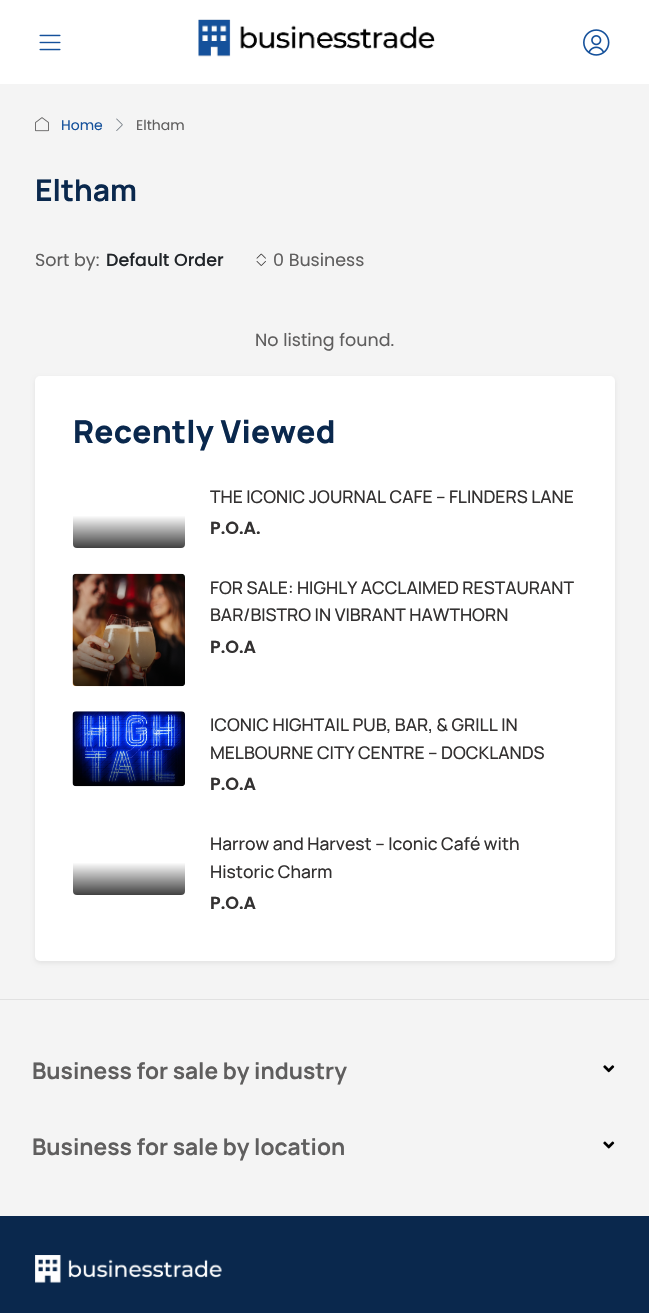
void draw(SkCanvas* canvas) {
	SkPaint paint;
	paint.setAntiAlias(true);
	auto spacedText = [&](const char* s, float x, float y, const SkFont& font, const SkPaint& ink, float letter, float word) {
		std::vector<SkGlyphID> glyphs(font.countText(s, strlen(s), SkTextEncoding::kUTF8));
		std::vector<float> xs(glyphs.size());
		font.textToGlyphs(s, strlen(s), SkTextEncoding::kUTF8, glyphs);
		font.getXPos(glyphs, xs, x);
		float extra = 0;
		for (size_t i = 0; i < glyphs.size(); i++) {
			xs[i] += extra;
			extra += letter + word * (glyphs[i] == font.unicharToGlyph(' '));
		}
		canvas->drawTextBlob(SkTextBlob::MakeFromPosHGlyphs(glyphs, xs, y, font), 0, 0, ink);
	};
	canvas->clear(0xfff4f4f4);
	paint.setColor(0xffffffff);
	canvas->drawRect(SkRect::MakeXYWH(0, 0, 649, 84), paint);
	canvas->drawImageRect(SkImages::DeferredFromEncodedData(SkData::MakeFromFileName("img1.png")), SkRect::MakeXYWH(39, 34, 22, 17), SkSamplingOptions());
	canvas->drawImageRect(SkImages::DeferredFromEncodedData(SkData::MakeFromFileName("img2.png")), SkRect::MakeXYWH(198, 19, 237, 38), SkSamplingOptions());
	canvas->drawImageRect(SkImages::DeferredFromEncodedData(SkData::MakeFromFileName("img3.png")), SkRect::MakeXYWH(583, 29, 27, 27), SkSamplingOptions());
	canvas->drawImageRect(SkImages::DeferredFromEncodedData(SkData::MakeFromFileName("img4.png")), SkRect::MakeXYWH(35, 117, 14, 15), SkSamplingOptions());
	SkFont f1(fontMgr->matchFamilyStyle("Poppins", SkFontStyle::Normal()), 14);
	f1.setSubpixel(true);
	paint.setColor(0xff15519b);
	canvas->drawString("Home", 61, 130, f1, paint);
	canvas->drawImageRect(SkImages::DeferredFromEncodedData(SkData::MakeFromFileName("img5.png")), SkRect::MakeXYWH(116, 118, 7, 13), SkSamplingOptions());
	paint.setColor(0xff5f5e5e);
	canvas->drawString("Eltham", 136, 130, f1, paint);
	SkFont f2(fontMgr->matchFamilyStyle("Manrope", SkFontStyle::Bold()), 30);
	f2.setSubpixel(true);
	paint.setColor(0xff0a284d);
	canvas->drawString("Eltham", 35, 201, f2, paint);
	SkFont f3(fontMgr->matchFamilyStyle("Poppins", SkFontStyle::Normal()), 17.5);
	f3.setSubpixel(true);
	paint.setColor(0xff5f5e5e);
	canvas->drawString("Sort by:", 35, 266, f3, paint);
	SkFont f4(fontMgr->matchFamilyStyle("Poppins", SkFontStyle(500, SkFontStyle::kNormal_Width, SkFontStyle::kUpright_Slant)), 17.5);
	f4.setSubpixel(true);
	paint.setColor(0xff212529);
	canvas->drawString("Default Order", 106, 266, f4, paint);
	canvas->drawImageRect(SkImages::DeferredFromEncodedData(SkData::MakeFromFileName("img6.png")), SkRect::MakeXYWH(256, 253, 10, 13), SkSamplingOptions());
	paint.setColor(0xff5f5e5e);
	canvas->drawString("0 Business", 273, 266, f3, paint);
	canvas->drawString("No listing found.", 255, 346, f3, paint);
	paint.setColor(0x12000000);
	paint.setMaskFilter(SkMaskFilter::MakeBlur(kNormal_SkBlurStyle, 2));
	canvas->drawRoundRect(SkRect::MakeXYWH(35, 378, 580, 585), 5, 5, paint);
	paint.setMaskFilter(nullptr);
	paint.setColor(0xffffffff);
	canvas->drawRoundRect(SkRect::MakeXYWH(35, 376, 580, 585), 5, 5, paint);
	SkFont f5(fontMgr->matchFamilyStyle("Manrope", SkFontStyle(800, SkFontStyle::kNormal_Width, SkFontStyle::kUpright_Slant)), 31.5);
	f5.setSubpixel(true);
	paint.setColor(0xff0a284d);
	spacedText("Recently Viewed", 73, 443, f5, paint, 0.25, 0);
	{
		const SkColor colors[] = {0xffffffff, 0xffffffff, 0xff404040};
		const float stops[] = {0, 0.5, 1};
		const SkPoint ends[] = {{129, 483}, {129, 548}};
		paint.setShader(SkGradientShader::MakeLinear(ends, colors, stops, 3, SkTileMode::kClamp));
		paint.setAlpha(255);
	}
	canvas->drawRoundRect(SkRect::MakeXYWH(73, 483, 112, 65), 4, 4, paint);
	SkFont f6(fontMgr->matchFamilyStyle("Manrope", SkFontStyle(500, SkFontStyle::kNormal_Width, SkFontStyle::kUpright_Slant)), 17.5);
	f6.setSubpixel(true);
	paint.setShader(nullptr);
	paint.setColor(0xff333131);
	canvas->drawString("THE ICONIC JOURNAL CAFE – FLINDERS LANE", 210, 503, f6, paint);
	SkFont f7(fontMgr->matchFamilyStyle("Poppins", SkFontStyle(600, SkFontStyle::kNormal_Width, SkFontStyle::kUpright_Slant)), 17.5);
	f7.setSubpixel(true);
	canvas->drawString("P.O.A.", 210, 534, f7, paint);
	canvas->drawImageRect(SkImages::DeferredFromEncodedData(SkData::MakeFromFileName("img7.png")), SkRect::MakeXYWH(72, 573, 113, 114), SkSamplingOptions());
	{
		const SkColor colors[] = {0x00000000, 0x00000000, 0xbf000000};
		const float stops[] = {0, 0.5, 1};
		const SkPoint ends[] = {{129, 574}, {129, 686}};
		paint.setShader(SkGradientShader::MakeLinear(ends, colors, stops, 3, SkTileMode::kClamp));
		paint.setAlpha(255);
	}
	canvas->drawRoundRect(SkRect::MakeXYWH(73, 574, 112, 112), 4, 4, paint);
	paint.setShader(nullptr);
	paint.setColor(0xff333131);
	canvas->drawString("FOR SALE: HIGHLY ACCLAIMED RESTAURANT", 210, 594, f6, paint);
	canvas->drawString("BAR/BISTRO IN VIBRANT HAWTHORN", 210, 621, f6, paint);
	canvas->drawString("P.O.A", 210, 653, f7, paint);
	canvas->drawImageRect(SkImages::DeferredFromEncodedData(SkData::MakeFromFileName("img8.png")), SkRect::MakeXYWH(72, 711, 113, 76), SkSamplingOptions());
	{
		const SkColor colors[] = {0x00000000, 0x00000000, 0xbf000000};
		const float stops[] = {0, 0.5, 1};
		const SkPoint ends[] = {{129, 711}, {129, 786}};
		paint.setShader(SkGradientShader::MakeLinear(ends, colors, stops, 3, SkTileMode::kClamp));
		paint.setAlpha(255);
	}
	canvas->drawRoundRect(SkRect::MakeXYWH(73, 711, 112, 75), 4, 4, paint);
	paint.setShader(nullptr);
	paint.setColor(0xff333131);
	canvas->drawString("ICONIC HIGHTAIL PUB, BAR, & GRILL IN", 210, 731, f6, paint);
	canvas->drawString("MELBOURNE CITY CENTRE – DOCKLANDS", 210, 759, f6, paint);
	canvas->drawString("P.O.A", 210, 790, f7, paint);
	{
		const SkColor colors[] = {0xffffffff, 0xffffffff, 0xff404040};
		const float stops[] = {0, 0.5, 1};
		const SkPoint ends[] = {{129, 830}, {129, 895}};
		paint.setShader(SkGradientShader::MakeLinear(ends, colors, stops, 3, SkTileMode::kClamp));
		paint.setAlpha(255);
	}
	canvas->drawRoundRect(SkRect::MakeXYWH(73, 830, 112, 65), 4, 4, paint);
	paint.setShader(nullptr);
	paint.setColor(0xff333131);
	canvas->drawString("Harrow and Harvest – Iconic Café with", 210, 850, f6, paint);
	canvas->drawString("Historic Charm", 210, 878, f6, paint);
	canvas->drawString("P.O.A", 210, 909, f7, paint);
	paint.setColor(0xffe1e1e1);
	canvas->drawRect(SkRect::MakeXYWH(0, 999, 649, 1), paint);
	SkFont f8(fontMgr->matchFamilyStyle("Manrope", SkFontStyle::Bold()), 22.75);
	f8.setSubpixel(true);
	paint.setColor(0xff5f5e5e);
	canvas->drawString("Business for sale by industry", 32, 1079, f8, paint);
	canvas->drawImageRect(SkImages::DeferredFromEncodedData(SkData::MakeFromFileName("img9.png")), SkRect::MakeXYWH(603, 1065, 12, 8), SkSamplingOptions());
	canvas->drawString("Business for sale by location", 32, 1155, f8, paint);
	canvas->drawImageRect(SkImages::DeferredFromEncodedData(SkData::MakeFromFileName("img10.png")), SkRect::MakeXYWH(603, 1141, 12, 8), SkSamplingOptions());
	paint.setColor(0xff0a284d);
	canvas->drawRect(SkRect::MakeXYWH(0, 1216, 649, 97), paint);
	canvas->drawImageRect(SkImages::DeferredFromEncodedData(SkData::MakeFromFileName("img11.png")), SkRect::MakeXYWH(35, 1255, 187, 28), SkSamplingOptions());
}
